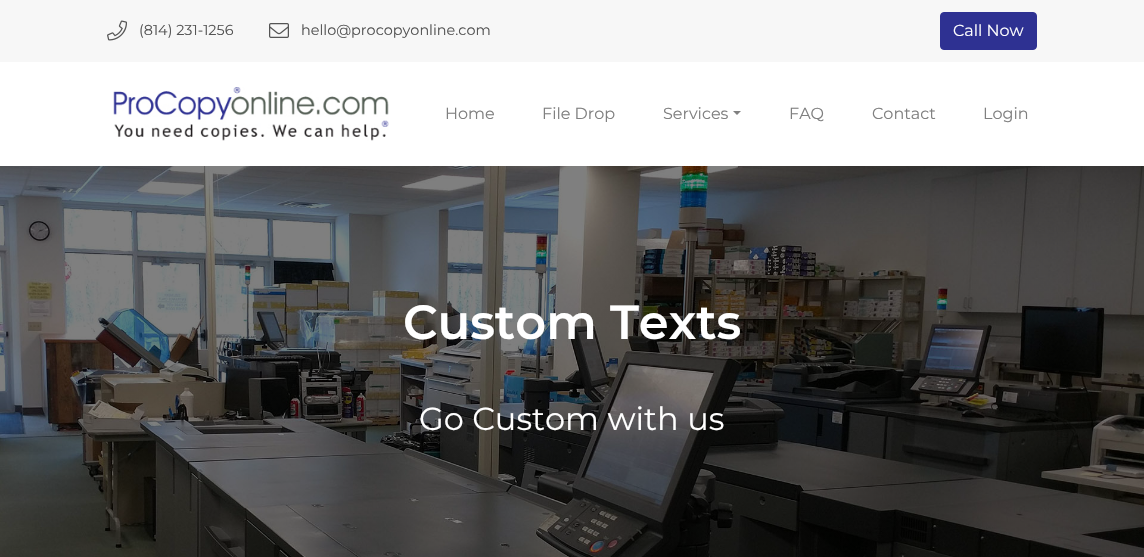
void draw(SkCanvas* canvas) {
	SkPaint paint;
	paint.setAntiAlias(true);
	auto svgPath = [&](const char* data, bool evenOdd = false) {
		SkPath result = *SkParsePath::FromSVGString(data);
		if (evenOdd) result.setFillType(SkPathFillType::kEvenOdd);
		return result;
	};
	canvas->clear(0xffffffff);
	paint.setColor(0xfff7f7f7);
	canvas->drawRect(SkRect::MakeXYWH(0, 0, 1144, 62), paint);
	canvas->drawImageRect(SkImages::DeferredFromEncodedData(SkData::MakeFromFileName("img1.png")), SkRect::MakeXYWH(107, 20, 20, 21), SkSamplingOptions());
	SkFont f1(fontMgr->matchFamilyStyle("Montserrat", SkFontStyle::Normal()), 14.4);
	f1.setSubpixel(true);
	paint.setColor(0xff555555);
	canvas->drawString("(814) 231-1256", 139, 35, f1, paint);
	canvas->drawImageRect(SkImages::DeferredFromEncodedData(SkData::MakeFromFileName("img2.png")), SkRect::MakeXYWH(269, 23, 20, 15), SkSamplingOptions());
	canvas->drawString("hello@procopyonline.com", 301, 35, f1, paint);
	paint.setColor(0xff2e3192);
	canvas->drawRoundRect(SkRect::MakeXYWH(940.5, 12.5, 96, 37), 3.5, 3.5, paint);
	paint.setStroke(true);
	paint.setStrokeWidth(1);
	canvas->drawRoundRect(SkRect::MakeXYWH(940.5, 12.5, 96, 37), 3.5, 3.5, paint);
	SkFont f2(fontMgr->matchFamilyStyle("Montserrat", SkFontStyle::Normal()), 16);
	f2.setSubpixel(true);
	paint.setStroke(false);
	paint.setColor(0xffffffff);
	canvas->drawString("Call Now", 953, 36, f2, paint);
	canvas->drawImageRect(SkImages::DeferredFromEncodedData(SkData::MakeFromFileName("img3.png")), SkRect::MakeXYWH(113, 87, 276, 54), SkSamplingOptions());
	paint.setColor(0xff808080);
	canvas->drawString("Home", 445, 119, f2, paint);
	canvas->drawString("File Drop", 542, 119, f2, paint);
	canvas->drawString("Services", 663, 119, f2, paint);
	canvas->drawPath(svgPath("M733 111H741L737 115Z"), paint);
	canvas->drawString("FAQ", 789, 119, f2, paint);
	canvas->drawString("Contact", 872, 119, f2, paint);
	canvas->drawString("Login", 983, 119, f2, paint);
	canvas->drawImageRect(SkImages::DeferredFromEncodedData(SkData::MakeFromFileName("img4.png")), SkRect::MakeXYWH(0, 166, 1144, 391), SkSamplingOptions());
	SkFont f3(fontMgr->matchFamilyStyle("Montserrat", SkFontStyle(600, SkFontStyle::kNormal_Width, SkFontStyle::kUpright_Slant)), 48);
	f3.setSubpixel(true);
	paint.setColor(0xffffffff);
	canvas->drawString("Custom Texts", 403, 339, f3, paint);
	SkFont f4(fontMgr->matchFamilyStyle("Montserrat", SkFontStyle::Normal()), 32);
	f4.setSubpixel(true);
	canvas->drawString("Go Custom with us", 419, 430, f4, paint);
}
